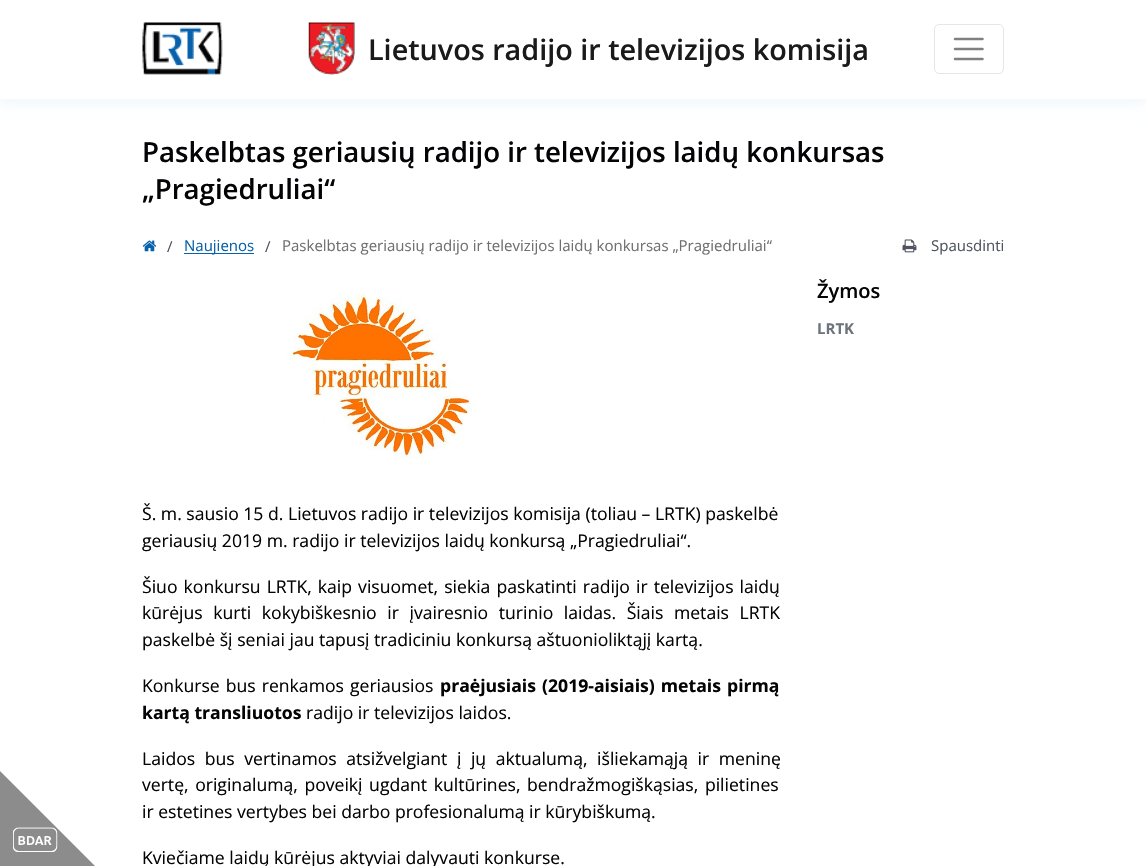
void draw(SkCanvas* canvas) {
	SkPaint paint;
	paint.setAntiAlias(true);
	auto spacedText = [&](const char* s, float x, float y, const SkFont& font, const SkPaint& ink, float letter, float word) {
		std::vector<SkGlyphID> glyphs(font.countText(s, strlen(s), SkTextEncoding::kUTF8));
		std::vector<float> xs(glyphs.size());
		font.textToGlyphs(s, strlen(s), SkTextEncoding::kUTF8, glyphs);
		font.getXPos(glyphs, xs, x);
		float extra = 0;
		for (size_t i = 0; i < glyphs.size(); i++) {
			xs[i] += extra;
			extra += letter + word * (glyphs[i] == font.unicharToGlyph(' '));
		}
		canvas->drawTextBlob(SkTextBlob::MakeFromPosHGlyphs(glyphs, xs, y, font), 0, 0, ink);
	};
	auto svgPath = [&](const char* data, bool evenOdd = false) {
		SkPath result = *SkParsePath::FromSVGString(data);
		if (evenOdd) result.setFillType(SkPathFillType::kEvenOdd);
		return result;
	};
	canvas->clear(0xffffffff);
	paint.setColor(0x0f0073c6);
	paint.setMaskFilter(SkMaskFilter::MakeBlur(kNormal_SkBlurStyle, 5.5));
	canvas->drawRect(SkRect::MakeXYWH(0, 5, 1146, 99), paint);
	paint.setMaskFilter(nullptr);
	paint.setColor(0xffffffff);
	canvas->drawRect(SkRect::MakeXYWH(0, 0, 1146, 99), paint);
	canvas->drawImageRect(SkImages::DeferredFromEncodedData(SkData::MakeFromFileName("img1.png")), SkRect::MakeXYWH(142, 22, 81, 53), SkSamplingOptions());
	canvas->drawImageRect(SkImages::DeferredFromEncodedData(SkData::MakeFromFileName("img2.png")), SkRect::MakeXYWH(308, 22, 47, 53), SkSamplingOptions());
	SkFont f1(fontMgr->matchFamilyStyle("Open Sans", SkFontStyle(600, SkFontStyle::kNormal_Width, SkFontStyle::kUpright_Slant)), 28.75);
	f1.setSubpixel(true);
	paint.setColor(0xff1a1a1a);
	canvas->drawString("Lietuvos radijo ir televizijos komisija", 368, 60, f1, paint);
	paint.setStroke(true);
	paint.setStrokeWidth(1);
	paint.setColor(0xffe6e6e6);
	canvas->drawRoundRect(SkRect::MakeXYWH(934.5, 24.5, 69, 49), 4.5, 4.5, paint);
	paint.setStrokeWidth(2.5);
	paint.setStrokeCap(SkPaint::kRound_Cap);
	paint.setColor(0xff808080);
	canvas->drawPath(svgPath("M955 39H982.5M955 49H982.5M955 59H982.5"), paint);
	paint.setStroke(false);
	paint.setColor(0xff8c8c8c);
	canvas->drawPath(svgPath("M-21 750L98 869L23 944L-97 825Z"), paint);
	canvas->drawImageRect(SkImages::DeferredFromEncodedData(SkData::MakeFromFileName("img3.png")), SkRect::MakeXYWH(13, 827, 45, 25), SkSamplingOptions());
	SkFont f2(fontMgr->matchFamilyStyle("Open Sans", SkFontStyle(600, SkFontStyle::kNormal_Width, SkFontStyle::kUpright_Slant)), 27.6);
	f2.setSubpixel(true);
	paint.setColor(0xff040406);
	canvas->drawString("Paskelbtas geriausių radijo ir televizijos laidų konkursas", 142, 162, f2, paint);
	canvas->drawString("„Pragiedruliai“", 142, 199, f2, paint);
	canvas->drawImageRect(SkImages::DeferredFromEncodedData(SkData::MakeFromFileName("img4.png")), SkRect::MakeXYWH(142, 240, 15, 12), SkSamplingOptions());
	SkFont f3(fontMgr->matchFamilyStyle("Open Sans", SkFontStyle::Normal()), 15);
	f3.setSubpixel(true);
	paint.setColor(0xff505460);
	canvas->drawString("/", 167, 252, f3, paint);
	paint.setColor(0xff0761ab);
	canvas->drawRect(SkRect::MakeXYWH(184, 253, 70, 1), paint);
	canvas->drawString("Naujienos", 184, 251, f3, paint);
	paint.setColor(0xff505460);
	canvas->drawString("/", 265, 252, f3, paint);
	paint.setColor(0xff707070);
	canvas->drawString("Paskelbtas geriausių radijo ir televizijos laidų konkursas „Pragiedruliai“", 282, 251, f3, paint);
	canvas->drawImageRect(SkImages::DeferredFromEncodedData(SkData::MakeFromFileName("img5.png")), SkRect::MakeXYWH(902, 239, 15, 14), SkSamplingOptions());
	paint.setColor(0xff505460);
	canvas->drawString("Spausdinti", 931, 251, f3, paint);
	SkFont f4(fontMgr->matchFamilyStyle("Open Sans", SkFontStyle(600, SkFontStyle::kNormal_Width, SkFontStyle::kUpright_Slant)), 20);
	f4.setSubpixel(true);
	paint.setColor(0xff040406);
	canvas->drawString("Žymos", 817, 298, f4, paint);
	SkFont f5(fontMgr->matchFamilyStyle("Open Sans", SkFontStyle::Bold()), 15);
	f5.setSubpixel(true);
	paint.setColor(0xff6c757d);
	canvas->drawString("LRTK", 817, 334, f5, paint);
	canvas->drawImageRect(SkImages::DeferredFromEncodedData(SkData::MakeFromFileName("img6.png")), SkRect::MakeXYWH(286, 294, 187, 165), SkSamplingOptions());
	SkFont f6(fontMgr->matchFamilyStyle("Open Sans", SkFontStyle::Normal()), 17.6);
	f6.setSubpixel(true);
	paint.setColor(0xff040406);
	canvas->drawString("Š. m. sausio 15 d. Lietuvos radijo ir televizijos komisija (toliau – LRTK) paskelbė", 142, 520, f6, paint);
	canvas->drawString("geriausių 2019 m. radijo ir televizijos laidų konkursą „Pragiedruliai“.", 142, 547, f6, paint);
	spacedText("Šiuo konkursu LRTK, kaip visuomet, siekia paskatinti radijo ir televizijos laidų", 142, 593, f6, paint, 0, 1.5);
	spacedText("kūrėjus kurti kokybiškesnio ir įvairesnio turinio laidas. Šiais metais LRTK", 142, 619, f6, paint, 0, 6);
	canvas->drawString("paskelbė šį seniai jau tapusį tradiciniu konkursą aštuonioliktąjį kartą.", 142, 646, f6, paint);
	spacedText("Konkurse bus renkamos geriausios", 142, 692, f6, paint, 0, 1.5);
	SkFont f7(fontMgr->matchFamilyStyle("Open Sans", SkFontStyle::Bold()), 17.6);
	f7.setSubpixel(true);
	spacedText("praėjusiais (2019-aisiais) metais", 440, 692, f7, paint, 0, 1.5);
	canvas->drawString("pirmą", 727, 692, f7, paint);
	canvas->drawString("kartą transliuotos", 142, 719, f7, paint);
	canvas->drawString("radijo ir televizijos laidos.", 306, 719, f6, paint);
	spacedText("Laidos bus vertinamos atsižvelgiant į jų aktualumą, išliekamąją ir meninę", 142, 765, f6, paint, 0, 5);
	spacedText("vertę, originalumą, poveikį ugdant kultūrines, bendražmogiškąsias, pilietines", 142, 791, f6, paint, 0, 2);
	canvas->drawString("ir estetines vertybes bei darbo profesionalumą ir kūrybiškumą.", 142, 818, f6, paint);
	canvas->drawString("Kviečiame laidų kūrėjus aktyviai dalyvauti konkurse.", 142, 864, f6, paint);
}
